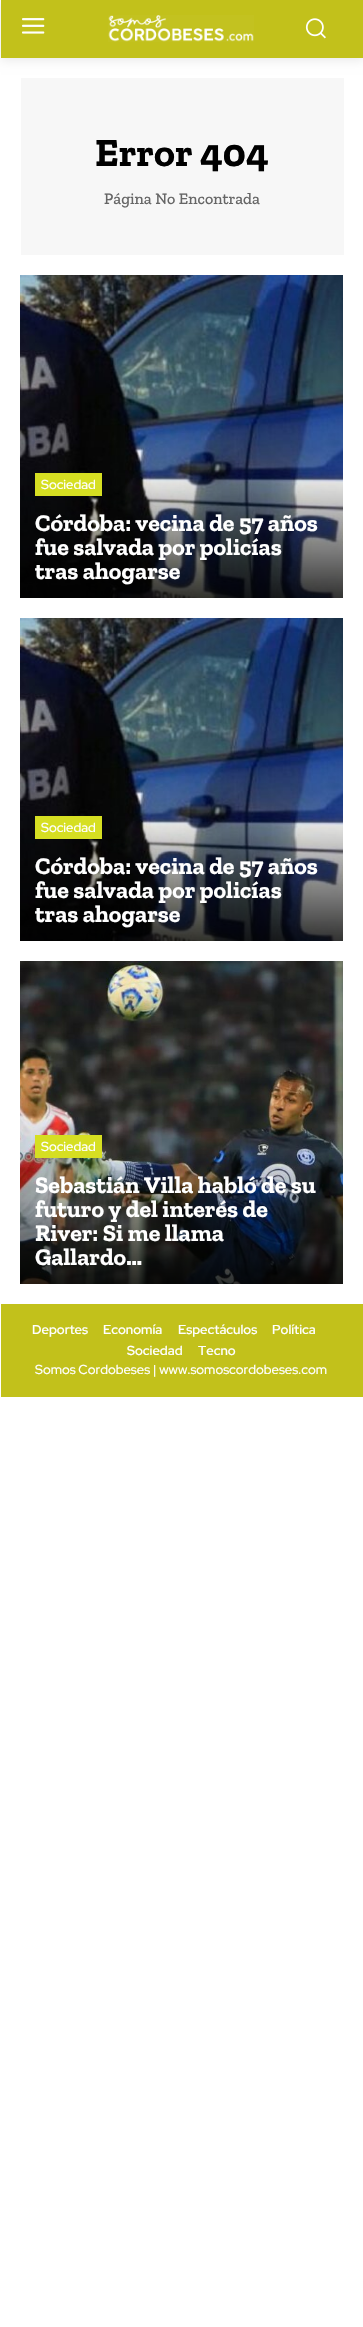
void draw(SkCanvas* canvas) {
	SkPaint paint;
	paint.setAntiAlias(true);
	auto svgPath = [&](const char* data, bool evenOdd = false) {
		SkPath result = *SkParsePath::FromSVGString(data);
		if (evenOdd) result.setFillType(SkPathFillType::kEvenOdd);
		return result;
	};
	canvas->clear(0xffffffff);
	paint.setColor(0xffc2c11b);
	canvas->drawRect(SkRect::MakeXYWH(1, 0, 362, 58), paint);
	canvas->drawImageRect(SkImages::DeferredFromEncodedData(SkData::MakeFromFileName("img1.png")), SkRect::MakeXYWH(22, 18, 23, 16), SkSamplingOptions());
	canvas->drawImageRect(SkImages::DeferredFromEncodedData(SkData::MakeFromFileName("img2.png")), SkRect::MakeXYWH(108, 15, 146, 27), SkSamplingOptions());
	canvas->drawImageRect(SkImages::DeferredFromEncodedData(SkData::MakeFromFileName("img3.png")), SkRect::MakeXYWH(305, 18, 21, 21), SkSamplingOptions());
	canvas->save();
	canvas->clipPath(svgPath("M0 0H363V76H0ZM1 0H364V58H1Z", true), true);
	paint.setColor(0x17000000);
	paint.setMaskFilter(SkMaskFilter::MakeBlur(kNormal_SkBlurStyle, 5));
	canvas->drawRect(SkRect::MakeXYWH(1, 2, 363, 58), paint);
	paint.setMaskFilter(nullptr);
	canvas->restore();
	paint.setColor(0xfff7f7f7);
	canvas->drawRect(SkRect::MakeXYWH(21, 78, 323, 177), paint);
	SkFont f1(fontMgr->matchFamilyStyle("Zilla Slab", SkFontStyle::Bold()), 40);
	f1.setSubpixel(true);
	paint.setColor(0xff000000);
	canvas->drawString("Error 404", 95, 166, f1, paint);
	SkFont f2(fontMgr->matchFamilyStyle("Zilla Slab", SkFontStyle(500, SkFontStyle::kNormal_Width, SkFontStyle::kUpright_Slant)), 16);
	f2.setSubpixel(true);
	paint.setColor(0xff666666);
	canvas->drawString("Página No Encontrada", 104, 204, f2, paint);
	canvas->drawImageRect(SkImages::DeferredFromEncodedData(SkData::MakeFromFileName("img4.png")), SkRect::MakeXYWH(20, 275, 323, 323), SkSamplingOptions());
	paint.setColor(0xffd6df22);
	canvas->drawRect(SkRect::MakeXYWH(35, 473, 67, 23), paint);
	SkFont f3(fontMgr->matchFamilyStyle("Red Hat Display", SkFontStyle(500, SkFontStyle::kNormal_Width, SkFontStyle::kUpright_Slant)), 13);
	f3.setSubpixel(true);
	paint.setColor(0xffffffff);
	canvas->drawString("Sociedad", 41, 489, f3, paint);
	SkFont f4(fontMgr->matchFamilyStyle("Zilla Slab", SkFontStyle::Bold()), 24);
	f4.setSubpixel(true);
	canvas->drawString("Córdoba: vecina de 57 años", 35, 531, f4, paint);
	canvas->drawString("fue salvada por policías", 35, 555, f4, paint);
	canvas->drawString("tras ahogarse", 35, 579, f4, paint);
	canvas->drawImageRect(SkImages::DeferredFromEncodedData(SkData::MakeFromFileName("img4.png")), SkRect::MakeXYWH(20, 618, 323, 323), SkSamplingOptions());
	paint.setColor(0xffd6df22);
	canvas->drawRect(SkRect::MakeXYWH(35, 816, 67, 23), paint);
	paint.setColor(0xffffffff);
	canvas->drawString("Sociedad", 41, 832, f3, paint);
	canvas->drawString("Córdoba: vecina de 57 años", 35, 874, f4, paint);
	canvas->drawString("fue salvada por policías", 35, 898, f4, paint);
	canvas->drawString("tras ahogarse", 35, 922, f4, paint);
	canvas->drawImageRect(SkImages::DeferredFromEncodedData(SkData::MakeFromFileName("img5.png")), SkRect::MakeXYWH(20, 961, 323, 323), SkSamplingOptions());
	paint.setColor(0xffd6df22);
	canvas->drawRect(SkRect::MakeXYWH(35, 1135, 67, 23), paint);
	paint.setColor(0xffffffff);
	canvas->drawString("Sociedad", 41, 1151, f3, paint);
	canvas->drawString("Sebastián Villa habló de su", 35, 1193, f4, paint);
	canvas->drawString("futuro y del interés de", 35, 1217, f4, paint);
	canvas->drawString("River: Si me llama", 35, 1241, f4, paint);
	canvas->drawString("Gallardo…", 35, 1265, f4, paint);
	paint.setColor(0xffc2c11b);
	canvas->drawRect(SkRect::MakeXYWH(1, 1304, 362, 93), paint);
	SkFont f5(fontMgr->matchFamilyStyle("Red Hat Display", SkFontStyle(600, SkFontStyle::kNormal_Width, SkFontStyle::kUpright_Slant)), 13);
	f5.setSubpixel(true);
	paint.setColor(0xffffffff);
	canvas->drawString("Deportes", 32, 1334, f5, paint);
	canvas->drawString("Economía", 103, 1334, f5, paint);
	canvas->drawString("Espectáculos", 178, 1334, f5, paint);
	canvas->drawString("Política", 272, 1334, f5, paint);
	canvas->drawString("Sociedad", 127, 1355, f5, paint);
	canvas->drawString("Tecno", 198, 1355, f5, paint);
	canvas->drawString("Somos Cordobeses | www.somoscordobeses.com", 35, 1374, f3, paint);
}
